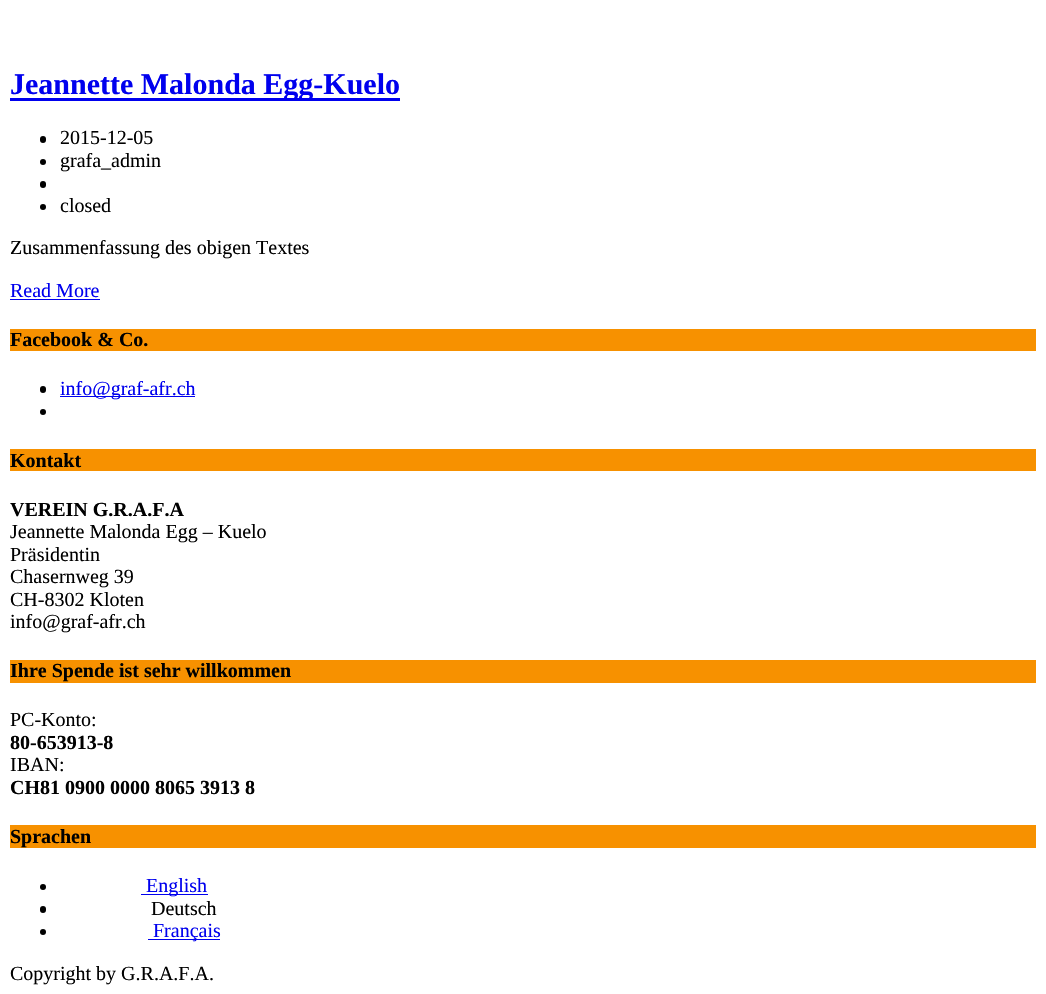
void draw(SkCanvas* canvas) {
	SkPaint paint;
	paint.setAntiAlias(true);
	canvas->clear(0xffffffff);
	paint.setColor(0xff0000ee);
	canvas->drawRect(SkRect::MakeXYWH(10, 98, 390, 3), paint);
	SkFont f1(fontMgr->matchFamilyStyle("Liberation Serif", SkFontStyle::Bold()), 30);
	f1.setSubpixel(true);
	canvas->drawString("Jeannette Malonda Egg-Kuelo", 10, 94, f1, paint);
	paint.setColor(0xff000000);
	canvas->drawRoundRect(SkRect::MakeXYWH(40, 136, 6, 7), 3, 3, paint);
	SkFont f2(fontMgr->matchFamilyStyle("Liberation Serif", SkFontStyle::Normal()), 20);
	f2.setSubpixel(true);
	canvas->drawString("2015-12-05", 60, 144, f2, paint);
	canvas->drawCircle(43, 162, 3, paint);
	canvas->drawString("grafa_admin", 60, 167, f2, paint);
	canvas->drawRoundRect(SkRect::MakeXYWH(40, 181, 6, 7), 3, 3, paint);
	canvas->drawCircle(43, 207, 3, paint);
	canvas->drawString("closed", 60, 212, f2, paint);
	canvas->drawString("Zusammenfassung des obigen Textes", 10, 254, f2, paint);
	paint.setColor(0xff0000ee);
	canvas->drawString("Read More", 10, 297, f2, paint);
	canvas->drawRect(SkRect::MakeXYWH(10, 299, 90, 1), paint);
	paint.setColor(0xfff79100);
	canvas->drawRect(SkRect::MakeXYWH(10, 329, 1026, 22), paint);
	SkFont f3(fontMgr->matchFamilyStyle("Liberation Serif", SkFontStyle::Bold()), 20);
	f3.setSubpixel(true);
	paint.setColor(0xff000000);
	canvas->drawString("Facebook & Co.", 10, 346, f3, paint);
	canvas->drawRoundRect(SkRect::MakeXYWH(40, 386, 6, 7), 3, 3, paint);
	paint.setColor(0xff0000ee);
	canvas->drawRect(SkRect::MakeXYWH(60, 396, 135, 1), paint);
	canvas->drawString("info@graf-afr.ch", 60, 395, f2, paint);
	paint.setColor(0xff000000);
	canvas->drawCircle(43, 412, 3, paint);
	paint.setColor(0xfff79100);
	canvas->drawRect(SkRect::MakeXYWH(10, 449, 1026, 22), paint);
	paint.setColor(0xff000000);
	canvas->drawString("Kontakt", 10, 467, f3, paint);
	canvas->drawString("VEREIN G.R.A.F.A", 10, 516, f3, paint);
	canvas->drawString("Jeannette Malonda Egg – Kuelo", 10, 538, f2, paint);
	canvas->drawString("Präsidentin", 10, 561, f2, paint);
	canvas->drawString("Chasernweg 39", 10, 583, f2, paint);
	canvas->drawString("CH-8302 Kloten", 10, 606, f2, paint);
	canvas->drawString("info@graf-afr.ch", 10, 628, f2, paint);
	paint.setColor(0xfff79100);
	canvas->drawRect(SkRect::MakeXYWH(10, 660, 1026, 23), paint);
	paint.setColor(0xff000000);
	canvas->drawString("Ihre Spende ist sehr willkommen", 10, 677, f3, paint);
	canvas->drawString("PC-Konto:", 10, 726, f2, paint);
	canvas->drawString("80-653913-8", 10, 749, f3, paint);
	canvas->drawString("IBAN:", 10, 771, f2, paint);
	canvas->drawString("CH81 0900 0000 8065 3913 8", 10, 794, f3, paint);
	paint.setColor(0xfff79100);
	canvas->drawRect(SkRect::MakeXYWH(10, 825, 1026, 23), paint);
	paint.setColor(0xff000000);
	canvas->drawString("Sprachen", 10, 843, f3, paint);
	canvas->drawCircle(43, 887, 3, paint);
	paint.setColor(0xff0000ee);
	canvas->drawRect(SkRect::MakeXYWH(141, 894, 67, 1), paint);
	canvas->drawString("English", 146, 892, f2, paint);
	paint.setColor(0xff000000);
	canvas->drawRoundRect(SkRect::MakeXYWH(40, 906, 6, 7), 3, 3, paint);
	canvas->drawString("Deutsch", 151, 915, f2, paint);
	canvas->drawCircle(43, 932, 3, paint);
	paint.setColor(0xff0000ee);
	canvas->drawRect(SkRect::MakeXYWH(148, 939, 72, 1), paint);
	canvas->drawString("Français", 153, 937, f2, paint);
	paint.setColor(0xff000000);
	canvas->drawString("Copyright by G.R.A.F.A.", 10, 980, f2, paint);
}
